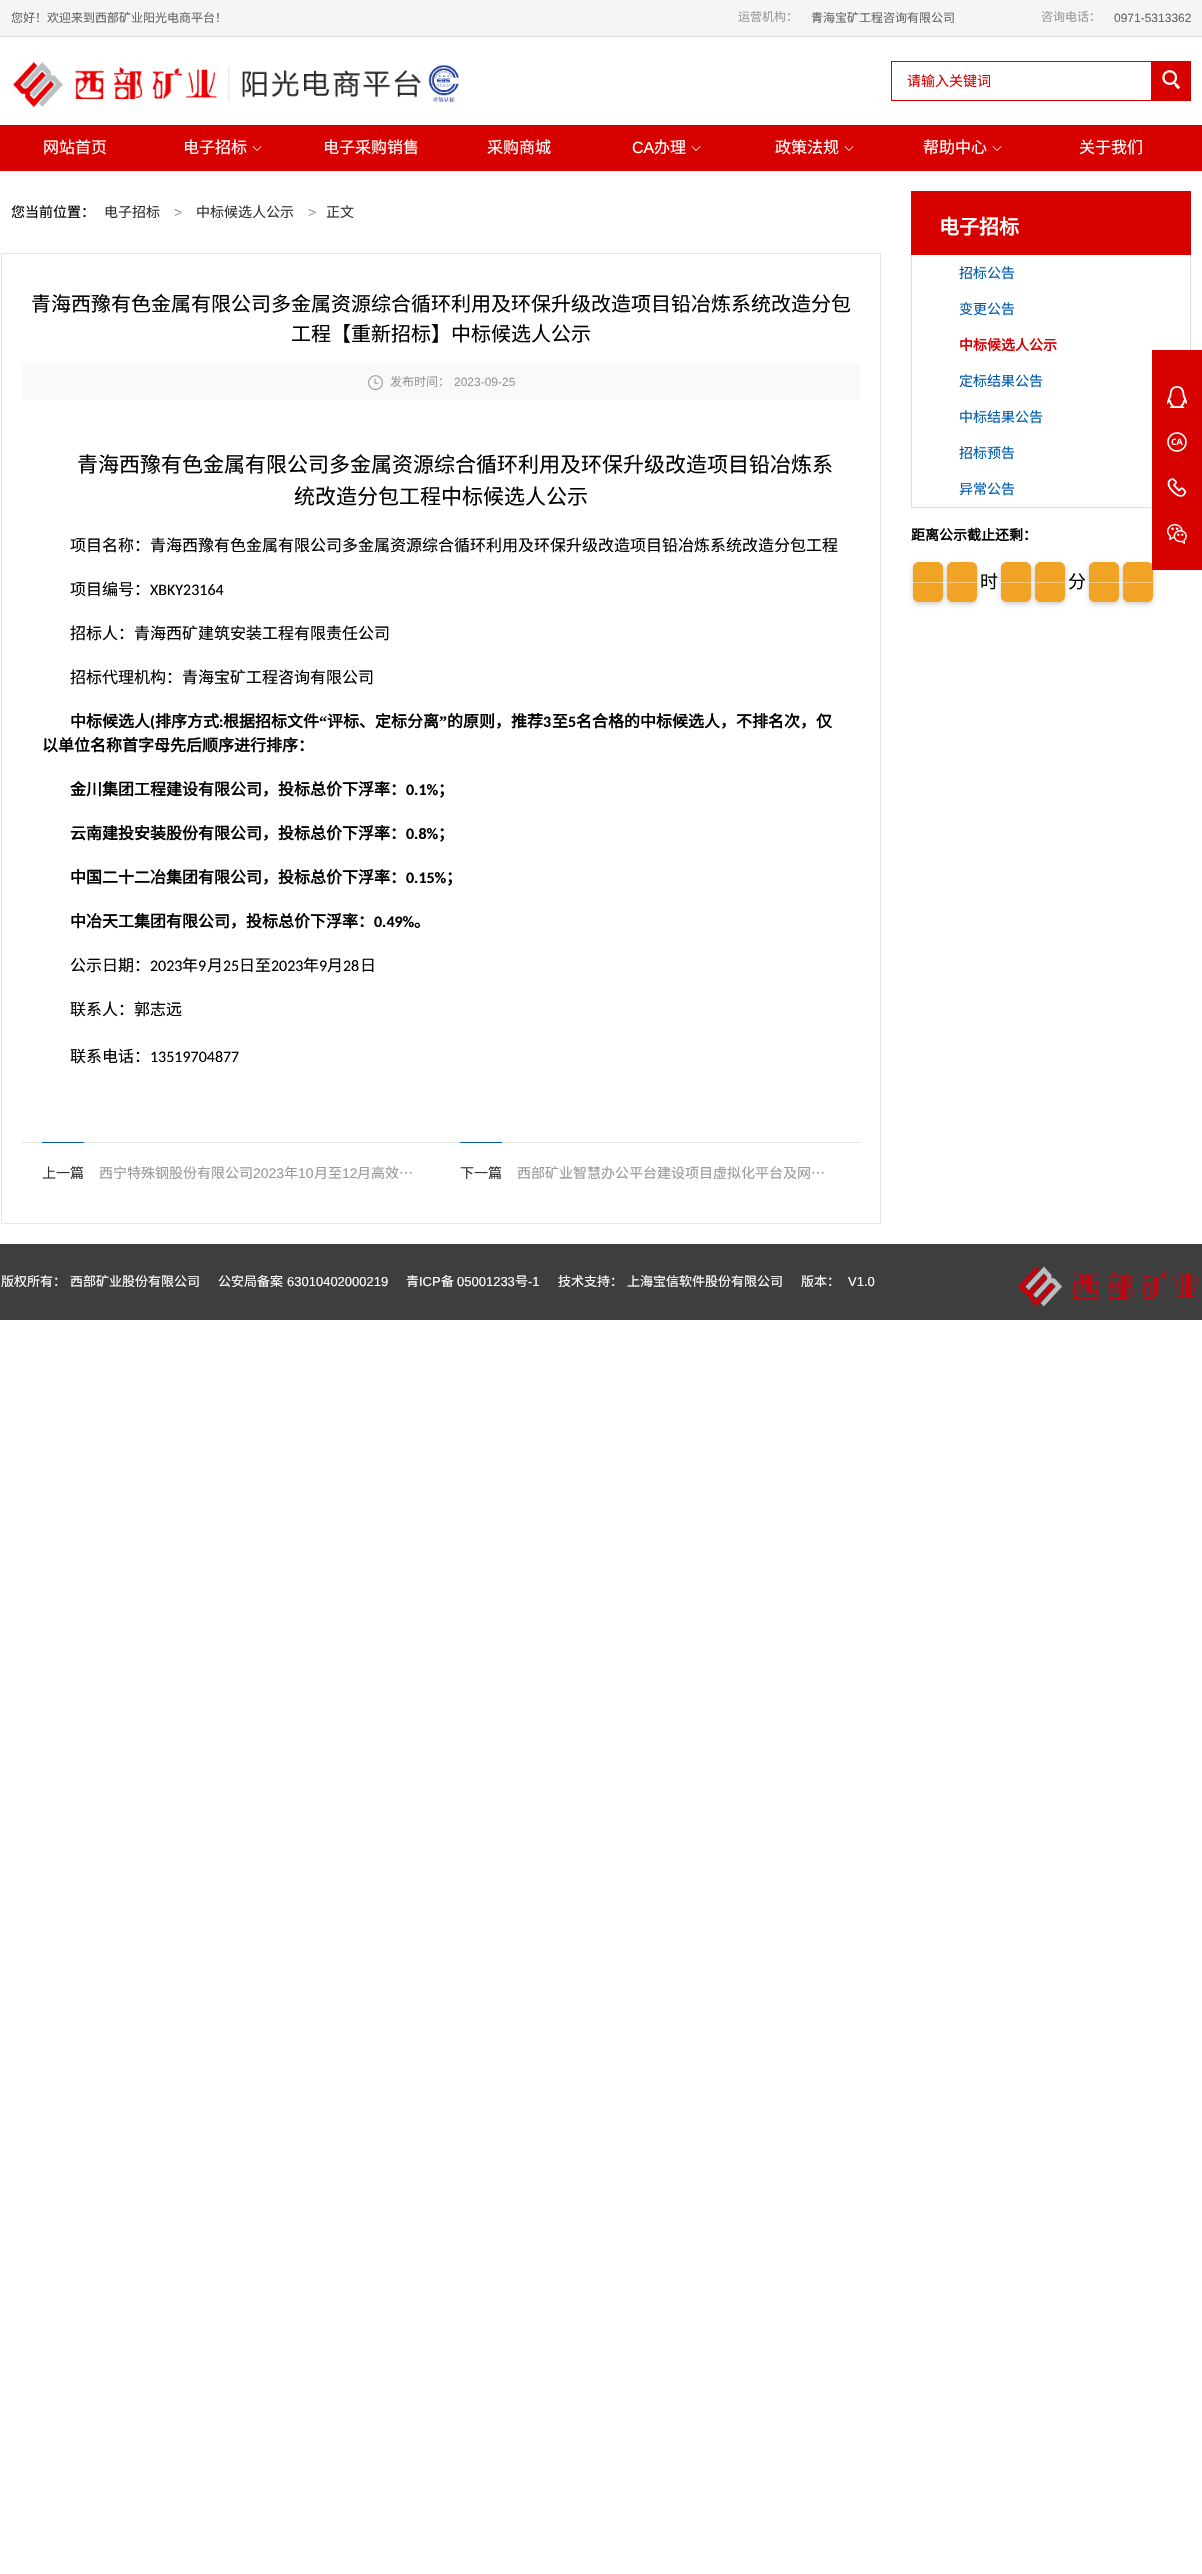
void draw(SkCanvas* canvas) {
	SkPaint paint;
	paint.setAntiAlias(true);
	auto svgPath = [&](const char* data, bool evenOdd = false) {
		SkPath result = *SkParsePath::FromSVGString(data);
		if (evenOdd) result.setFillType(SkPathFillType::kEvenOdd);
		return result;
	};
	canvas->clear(0xffffffff);
	paint.setColor(0xfff4f5f7);
	canvas->drawRect(SkRect::MakeXYWH(0, 0, 1202, 36), paint);
	paint.setColor(0xffd9d9db);
	canvas->drawRect(SkRect::MakeXYWH(0, 36, 1202, 1), paint);
	SkFont f1(fontMgr->matchFamilyStyle("Noto Sans CJK SC", SkFontStyle::Normal()), 12);
	f1.setSubpixel(true);
	paint.setColor(0xff666666);
	canvas->drawString("您好！欢迎来到西部矿业阳光电商平台！", 11, 22, f1, paint);
	paint.setColor(0xff999999);
	canvas->drawString("运营机构：", 738, 21, f1, paint);
	paint.setColor(0xff666666);
	canvas->drawString("青海宝矿工程咨询有限公司", 811, 22, f1, paint);
	paint.setColor(0xff999999);
	canvas->drawString("咨询电话：", 1041, 21, f1, paint);
	SkFont f2(fontMgr->matchFamilyStyle("Liberation Sans", SkFontStyle::Normal()), 12);
	f2.setSubpixel(true);
	paint.setColor(0xff666666);
	canvas->drawString("0971-5313362", 1114, 22, f2, paint);
	canvas->drawImageRect(SkImages::DeferredFromEncodedData(SkData::MakeFromFileName("img1.png")), SkRect::MakeXYWH(13, 61, 408, 47), SkSamplingOptions());
	canvas->drawImageRect(SkImages::DeferredFromEncodedData(SkData::MakeFromFileName("img2.png")), SkRect::MakeXYWH(428, 64, 31, 39), SkSamplingOptions());
	paint.setStroke(true);
	paint.setStrokeWidth(1);
	paint.setColor(0xffd70100);
	canvas->drawRect(SkRect::MakeXYWH(891.5, 61.5, 283, 39), paint);
	SkFont f3(fontMgr->matchFamilyStyle("Noto Sans CJK SC", SkFontStyle::Normal()), 14);
	f3.setSubpixel(true);
	paint.setStroke(false);
	canvas->drawString("请输入关键词", 907, 86, f3, paint);
	canvas->drawRect(SkRect::MakeXYWH(1151, 61, 40, 40), paint);
	canvas->drawImageRect(SkImages::DeferredFromEncodedData(SkData::MakeFromFileName("img3.png")), SkRect::MakeXYWH(1162, 70, 18, 20), SkSamplingOptions());
	canvas->drawRect(SkRect::MakeXYWH(0, 125, 1202, 46), paint);
	SkFont f4(fontMgr->matchFamilyStyle("Noto Sans CJK SC", SkFontStyle::Normal()), 16);
	f4.setSubpixel(true);
	paint.setColor(0xffffffff);
	canvas->drawString("网站首页", 43, 153, f4, paint);
	canvas->drawString("电子招标", 183, 153, f4, paint);
	canvas->drawImageRect(SkImages::DeferredFromEncodedData(SkData::MakeFromFileName("img4.png")), SkRect::MakeXYWH(252, 146, 10, 5), SkSamplingOptions());
	canvas->drawString("电子采购销售", 323, 153, f4, paint);
	canvas->drawString("采购商城", 487, 153, f4, paint);
	SkFont f5(fontMgr->matchFamilyStyle("Liberation Sans", SkFontStyle::Normal()), 16);
	f5.setSubpixel(true);
	canvas->drawString("CA", 632, 153, f5, paint);
	canvas->drawString("办理", 654, 153, f4, paint);
	canvas->drawImageRect(SkImages::DeferredFromEncodedData(SkData::MakeFromFileName("img4.png")), SkRect::MakeXYWH(691, 146, 10, 5), SkSamplingOptions());
	canvas->drawString("政策法规", 775, 153, f4, paint);
	canvas->drawImageRect(SkImages::DeferredFromEncodedData(SkData::MakeFromFileName("img4.png")), SkRect::MakeXYWH(844, 146, 10, 5), SkSamplingOptions());
	canvas->drawString("帮助中心", 923, 153, f4, paint);
	canvas->drawImageRect(SkImages::DeferredFromEncodedData(SkData::MakeFromFileName("img4.png")), SkRect::MakeXYWH(992, 146, 10, 5), SkSamplingOptions());
	canvas->drawString("关于我们", 1079, 153, f4, paint);
	paint.setColor(0xff000000);
	canvas->drawString("您当前位置：", 11, 217, f3, paint);
	paint.setColor(0xff333333);
	canvas->drawString("电子招标", 104, 217, f3, paint);
	SkFont f6(fontMgr->matchFamilyStyle("Liberation Sans", SkFontStyle::Normal()), 14);
	f6.setSubpixel(true);
	paint.setColor(0xff999999);
	canvas->drawString(">", 174, 217, f6, paint);
	paint.setColor(0xff333333);
	canvas->drawString("中标候选人公示", 196, 217, f3, paint);
	paint.setColor(0xff999999);
	canvas->drawString(">", 308, 217, f6, paint);
	paint.setColor(0xff333333);
	canvas->drawString("正文", 326, 217, f3, paint);
	paint.setStroke(true);
	paint.setColor(0xffe5e5e5);
	canvas->drawRect(SkRect::MakeXYWH(1.5, 253.5, 879, 970), paint);
	SkFont f7(fontMgr->matchFamilyStyle("Noto Sans CJK SC", SkFontStyle::Normal()), 20);
	f7.setSubpixel(true);
	paint.setStroke(false);
	paint.setColor(0xff000000);
	canvas->drawString("青海西豫有色金属有限公司多金属资源综合循环利用及环保升级改造项目铅冶炼系统改造分包", 31, 311, f7, paint);
	canvas->drawString("工程【重新招标】中标候选人公示", 291, 341, f7, paint);
	paint.setColor(0xfff9f9f9);
	canvas->drawRect(SkRect::MakeXYWH(22, 364, 838, 36), paint);
	canvas->drawImageRect(SkImages::DeferredFromEncodedData(SkData::MakeFromFileName("img5.png")), SkRect::MakeXYWH(368, 375, 15, 15), SkSamplingOptions());
	paint.setColor(0xff999999);
	canvas->drawString("发布时间：", 390, 386, f1, paint);
	canvas->drawString("2023-09-25", 454, 386, f2, paint);
	SkFont f8(fontMgr->matchFamilyStyle("Noto Sans CJK SC", SkFontStyle::Normal()), 21);
	f8.setSubpixel(true);
	paint.setColor(0xff000000);
	canvas->drawString("青海西豫有色金属有限公司多金属资源综合循环利用及环保升级改造项目铅冶炼系", 77, 472, f8, paint);
	canvas->drawString("统改造分包工程中标候选人公示", 294, 504, f8, paint);
	canvas->drawString("项目名称：青海西豫有色金属有限公司多金属资源综合循环利用及环保升级改造项目铅冶炼系统改造分包工程", 70, 551, f4, paint);
	canvas->drawString("项目编号：", 70, 595, f4, paint);
	SkFont f9(fontMgr->matchFamilyStyle("Carlito", SkFontStyle::Normal()), 16);
	f9.setSubpixel(true);
	canvas->drawString("XBKY23164", 150, 595, f9, paint);
	canvas->drawString("招标人：青海西矿建筑安装工程有限责任公司", 70, 639, f4, paint);
	canvas->drawString("招标代理机构：青海宝矿工程咨询有限公司", 70, 683, f4, paint);
	SkFont f10(fontMgr->matchFamilyStyle("Noto Sans CJK SC", SkFontStyle::Bold()), 16);
	f10.setSubpixel(true);
	canvas->drawString("中标候选人", 70, 727, f10, paint);
	SkFont f11(fontMgr->matchFamilyStyle("Carlito", SkFontStyle::Bold()), 16);
	f11.setSubpixel(true);
	canvas->drawString("(", 150, 727, f11, paint);
	canvas->drawString("排序方式", 155, 727, f10, paint);
	canvas->drawString(":", 219, 727, f11, paint);
	canvas->drawString("根据招标文件", 223, 727, f10, paint);
	SkFont f12(fontMgr->matchFamilyStyle("Liberation Serif", SkFontStyle::Bold()), 16);
	f12.setSubpixel(true);
	canvas->drawString("“", 319, 727, f12, paint);
	canvas->drawString("评标、定标分离", 327, 727, f10, paint);
	canvas->drawString("”", 439, 727, f12, paint);
	canvas->drawString("的原则，推荐", 447, 727, f10, paint);
	canvas->drawString("3", 543, 727, f11, paint);
	canvas->drawString("至", 552, 727, f10, paint);
	canvas->drawString("5", 568, 727, f11, paint);
	canvas->drawString("名合格的中标候选人，不排名次，仅", 576, 727, f10, paint);
	canvas->drawString("以单位名称首字母先后顺序进行排序：", 42, 751, f10, paint);
	canvas->drawString("金川集团工程建设有限公司，投标总价下浮率：", 70, 795, f10, paint);
	canvas->drawString("0.1%", 406, 795, f11, paint);
	canvas->drawString("；", 438, 795, f10, paint);
	canvas->drawString("云南建投安装股份有限公司，投标总价下浮率：", 70, 839, f10, paint);
	canvas->drawString("0.8%", 406, 839, f11, paint);
	canvas->drawString("；", 438, 839, f10, paint);
	canvas->drawString("中国二十二冶集团有限公司，投标总价下浮率：", 70, 883, f10, paint);
	canvas->drawString("0.15%", 406, 883, f11, paint);
	canvas->drawString("；", 446, 883, f10, paint);
	canvas->drawString("中冶天工集团有限公司，投标总价下浮率：", 70, 927, f10, paint);
	canvas->drawString("0.49%", 374, 927, f11, paint);
	canvas->drawString("。", 414, 927, f10, paint);
	canvas->drawString("公示日期：", 70, 971, f4, paint);
	canvas->drawString("2023", 150, 971, f9, paint);
	canvas->drawString("年", 182, 971, f4, paint);
	canvas->drawString("9", 198, 971, f9, paint);
	canvas->drawString("月", 207, 971, f4, paint);
	canvas->drawString("25", 223, 971, f9, paint);
	canvas->drawString("日至", 239, 971, f4, paint);
	canvas->drawString("2023", 271, 971, f9, paint);
	canvas->drawString("年", 303, 971, f4, paint);
	canvas->drawString("9", 319, 971, f9, paint);
	canvas->drawString("月", 327, 971, f4, paint);
	canvas->drawString("28", 343, 971, f9, paint);
	canvas->drawString("日", 360, 971, f4, paint);
	canvas->drawString("联系人：郭志远", 70, 1015, f4, paint);
	canvas->drawString("联系电话：", 70, 1062, f4, paint);
	canvas->drawString("13519704877", 150, 1062, f9, paint);
	paint.setColor(0xffe5e5e5);
	canvas->drawRect(SkRect::MakeXYWH(22, 1142, 838, 1), paint);
	paint.setColor(0xff005bac);
	canvas->drawRect(SkRect::MakeXYWH(42, 1142, 42, 1), paint);
	paint.setColor(0xff333333);
	canvas->drawString("上一篇", 42, 1178, f3, paint);
	paint.setColor(0xff999999);
	canvas->drawString("西宁特殊钢股份有限公司", 99, 1178, f3, paint);
	canvas->drawString("2023", 253, 1178, f6, paint);
	canvas->drawString("年", 284, 1178, f3, paint);
	canvas->drawString("10", 298, 1178, f6, paint);
	canvas->drawString("月至", 314, 1178, f3, paint);
	canvas->drawString("12", 342, 1178, f6, paint);
	canvas->drawString("月高效…", 357, 1178, f3, paint);
	paint.setColor(0xff005bac);
	canvas->drawRect(SkRect::MakeXYWH(460, 1142, 42, 1), paint);
	paint.setColor(0xff333333);
	canvas->drawString("下一篇", 460, 1178, f3, paint);
	paint.setColor(0xff999999);
	canvas->drawString("西部矿业智慧办公平台建设项目虚拟化平台及网…", 517, 1178, f3, paint);
	paint.setColor(0xffd70100);
	canvas->drawRect(SkRect::MakeXYWH(911, 191, 280, 64), paint);
	SkFont f13(fontMgr->matchFamilyStyle("Noto Sans CJK SC", SkFontStyle::Bold()), 20);
	f13.setSubpixel(true);
	paint.setColor(0xffffffff);
	canvas->drawString("电子招标", 939, 234, f13, paint);
	paint.setColor(0xffdddddd);
	canvas->drawRect(SkRect::MakeXYWH(1190, 255, 1, 95), paint);
	canvas->drawRect(SkRect::MakeXYWH(911, 507, 241, 1), paint);
	canvas->drawRect(SkRect::MakeXYWH(911, 255, 1, 253), paint);
	paint.setColor(0xff005bac);
	canvas->drawString("招标公告", 959, 278, f3, paint);
	canvas->drawString("变更公告", 959, 314, f3, paint);
	SkFont f14(fontMgr->matchFamilyStyle("Noto Sans CJK SC", SkFontStyle::Bold()), 14);
	f14.setSubpixel(true);
	paint.setColor(0xffd70100);
	canvas->drawString("中标候选人公示", 959, 350, f14, paint);
	paint.setColor(0xff005bac);
	canvas->drawString("定标结果公告", 959, 386, f3, paint);
	canvas->drawString("中标结果公告", 959, 422, f3, paint);
	canvas->drawString("招标预告", 959, 458, f3, paint);
	canvas->drawString("异常公告", 959, 494, f3, paint);
	paint.setColor(0xff000000);
	canvas->drawString("距离公示截止还剩：", 911, 540, f14, paint);
	paint.setColor(0x33000000);
	paint.setMaskFilter(SkMaskFilter::MakeBlur(kNormal_SkBlurStyle, 2.5));
	canvas->drawRoundRect(SkRect::MakeXYWH(913, 564, 30, 40), 6, 6, paint);
	paint.setMaskFilter(nullptr);
	paint.setMaskFilter(SkMaskFilter::MakeBlur(kNormal_SkBlurStyle, 2.5));
	canvas->drawRoundRect(SkRect::MakeXYWH(947, 564, 30, 40), 6, 6, paint);
	paint.setMaskFilter(nullptr);
	paint.setColor(0xfff1a325);
	canvas->drawPath(svgPath("M919 562H937C940.5 562 943 564.5 943 568V582H913V568C913 564.5 915.5 562 919 562Z"), paint);
	canvas->drawPath(svgPath("M913 583H943V596C943 599.5 940.5 602 937 602H919C915.5 602 913 599.5 913 596Z"), paint);
	paint.setColor(0xfff8c777);
	canvas->drawRect(SkRect::MakeXYWH(913, 582, 30, 1), paint);
	paint.setColor(0xfff1a325);
	canvas->drawPath(svgPath("M953 562H971C974.5 562 977 564.5 977 568V582H947V568C947 564.5 949.5 562 953 562Z"), paint);
	canvas->drawPath(svgPath("M947 583H977V596C977 599.5 974.5 602 971 602H953C949.5 602 947 599.5 947 596Z"), paint);
	paint.setColor(0xfff8c777);
	canvas->drawRect(SkRect::MakeXYWH(947, 582, 30, 1), paint);
	SkFont f15(fontMgr->matchFamilyStyle("Noto Sans CJK SC", SkFontStyle::Normal()), 18);
	f15.setSubpixel(true);
	paint.setColor(0xff000000);
	canvas->drawString("时", 980, 588, f15, paint);
	paint.setColor(0x33000000);
	paint.setMaskFilter(SkMaskFilter::MakeBlur(kNormal_SkBlurStyle, 2.5));
	canvas->drawRoundRect(SkRect::MakeXYWH(1001, 564, 30, 40), 6, 6, paint);
	paint.setMaskFilter(nullptr);
	paint.setMaskFilter(SkMaskFilter::MakeBlur(kNormal_SkBlurStyle, 2.5));
	canvas->drawRoundRect(SkRect::MakeXYWH(1035, 564, 30, 40), 6, 6, paint);
	paint.setMaskFilter(nullptr);
	paint.setColor(0xfff1a325);
	canvas->drawPath(svgPath("M1007 562H1025C1028.5 562 1031 564.5 1031 568V582H1001V568C1001 564.5 1003.5 562 1007 562Z"), paint);
	canvas->drawPath(svgPath("M1001 583H1031V596C1031 599.5 1028.5 602 1025 602H1007C1003.5 602 1001 599.5 1001 596Z"), paint);
	paint.setColor(0xfff8c777);
	canvas->drawRect(SkRect::MakeXYWH(1001, 582, 30, 1), paint);
	paint.setColor(0xfff1a325);
	canvas->drawPath(svgPath("M1041 562H1059C1062.5 562 1065 564.5 1065 568V582H1035V568C1035 564.5 1037.5 562 1041 562Z"), paint);
	canvas->drawPath(svgPath("M1035 583H1065V596C1065 599.5 1062.5 602 1059 602H1041C1037.5 602 1035 599.5 1035 596Z"), paint);
	paint.setColor(0xfff8c777);
	canvas->drawRect(SkRect::MakeXYWH(1035, 582, 30, 1), paint);
	paint.setColor(0xff000000);
	canvas->drawString("分", 1068, 588, f15, paint);
	paint.setColor(0x33000000);
	paint.setMaskFilter(SkMaskFilter::MakeBlur(kNormal_SkBlurStyle, 2.5));
	canvas->drawRoundRect(SkRect::MakeXYWH(1089, 564, 30, 40), 6, 6, paint);
	paint.setMaskFilter(nullptr);
	paint.setMaskFilter(SkMaskFilter::MakeBlur(kNormal_SkBlurStyle, 2.5));
	canvas->drawRoundRect(SkRect::MakeXYWH(1123, 564, 30, 40), 6, 6, paint);
	paint.setMaskFilter(nullptr);
	paint.setColor(0xfff1a325);
	canvas->drawPath(svgPath("M1095 562H1113C1116.5 562 1119 564.5 1119 568V582H1089V568C1089 564.5 1091.5 562 1095 562Z"), paint);
	canvas->drawPath(svgPath("M1089 583H1119V596C1119 599.5 1116.5 602 1113 602H1095C1091.5 602 1089 599.5 1089 596Z"), paint);
	paint.setColor(0xfff8c777);
	canvas->drawRect(SkRect::MakeXYWH(1089, 582, 30, 1), paint);
	paint.setColor(0xfff1a325);
	canvas->drawPath(svgPath("M1129 562H1147C1150.5 562 1153 564.5 1153 568V582H1123V568C1123 564.5 1125.5 562 1129 562Z"), paint);
	canvas->drawPath(svgPath("M1123 583H1153V596C1153 599.5 1150.5 602 1147 602H1129C1125.5 602 1123 599.5 1123 596Z"), paint);
	paint.setColor(0xfff8c777);
	canvas->drawRect(SkRect::MakeXYWH(1123, 582, 30, 1), paint);
	paint.setColor(0xffd70100);
	canvas->drawRect(SkRect::MakeXYWH(1152, 350, 50, 220), paint);
	canvas->drawImageRect(SkImages::DeferredFromEncodedData(SkData::MakeFromFileName("img6.png")), SkRect::MakeXYWH(1167, 386, 20, 22), SkSamplingOptions());
	canvas->drawImageRect(SkImages::DeferredFromEncodedData(SkData::MakeFromFileName("img7.png")), SkRect::MakeXYWH(1167, 432, 20, 20), SkSamplingOptions());
	canvas->drawImageRect(SkImages::DeferredFromEncodedData(SkData::MakeFromFileName("img8.png")), SkRect::MakeXYWH(1167, 478, 20, 19), SkSamplingOptions());
	canvas->drawImageRect(SkImages::DeferredFromEncodedData(SkData::MakeFromFileName("img9.png")), SkRect::MakeXYWH(1167, 524, 20, 20), SkSamplingOptions());
	paint.setColor(0xff3e3e3e);
	canvas->drawRect(SkRect::MakeXYWH(0, 1244, 1202, 76), paint);
	SkFont f16(fontMgr->matchFamilyStyle("Noto Sans CJK SC", SkFontStyle::Normal()), 13);
	f16.setSubpixel(true);
	paint.setColor(0xffffffff);
	canvas->drawString("版权所有：", 1, 1286, f16, paint);
	canvas->drawString("西部矿业股份有限公司", 70, 1286, f16, paint);
	canvas->drawString("公安局备案", 218, 1286, f16, paint);
	SkFont f17(fontMgr->matchFamilyStyle("Liberation Sans", SkFontStyle::Normal()), 13);
	f17.setSubpixel(true);
	canvas->drawString("63010402000219", 287, 1286, f17, paint);
	canvas->drawString("青", 406, 1286, f16, paint);
	canvas->drawString("ICP", 419, 1286, f17, paint);
	canvas->drawString("备", 441, 1286, f16, paint);
	canvas->drawString("05001233", 457, 1286, f17, paint);
	canvas->drawString("号", 515, 1286, f16, paint);
	canvas->drawString("-1", 528, 1286, f17, paint);
	canvas->drawString("技术支持：", 558, 1286, f16, paint);
	canvas->drawString("上海宝信软件股份有限公司", 627, 1286, f16, paint);
	canvas->drawString("版本：", 801, 1286, f16, paint);
	canvas->drawString("V1.0", 848, 1286, f17, paint);
	canvas->drawImageRect(SkImages::DeferredFromEncodedData(SkData::MakeFromFileName("img10.png")), SkRect::MakeXYWH(1018, 1266, 182, 41), SkSamplingOptions());
}
